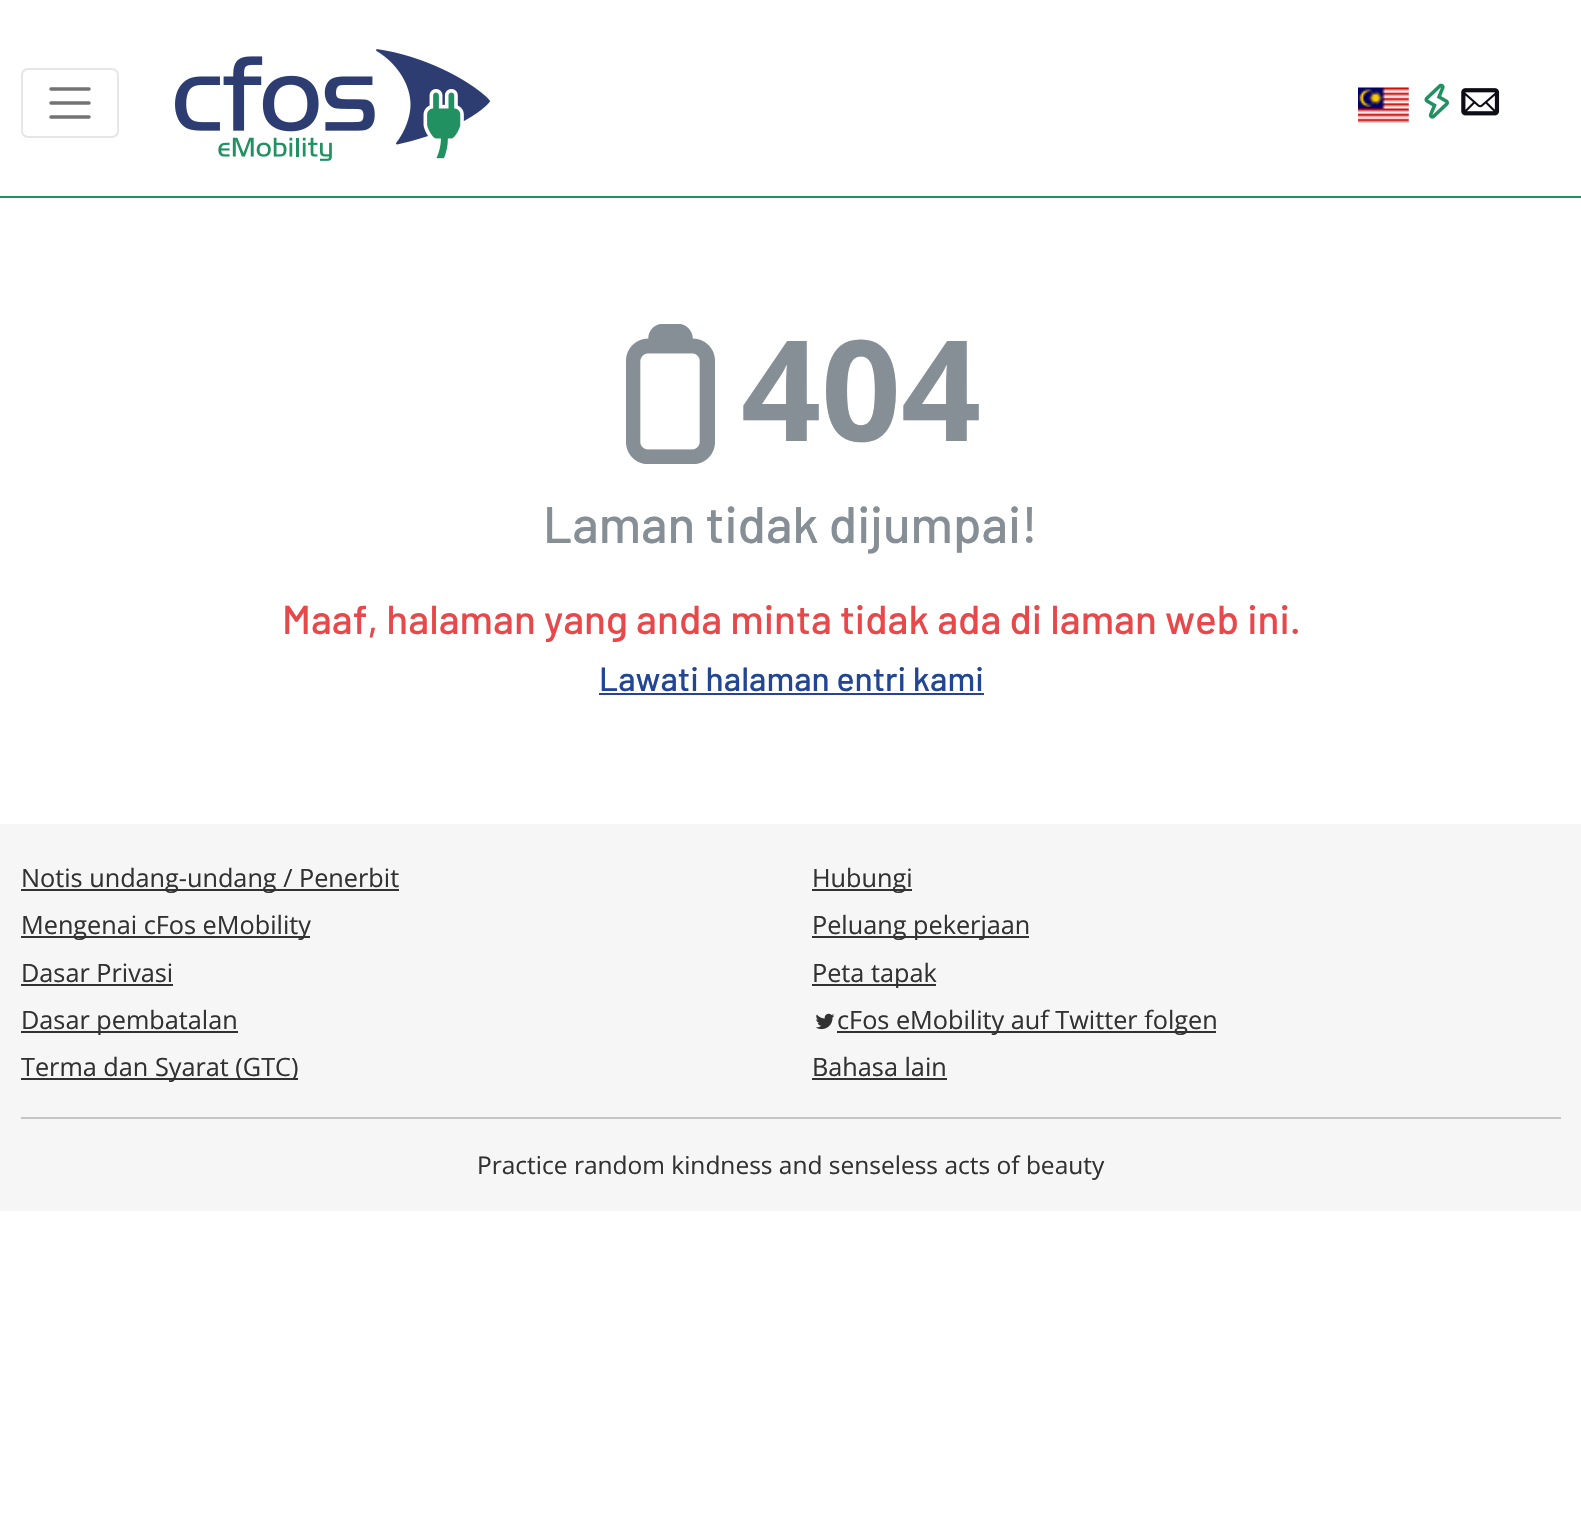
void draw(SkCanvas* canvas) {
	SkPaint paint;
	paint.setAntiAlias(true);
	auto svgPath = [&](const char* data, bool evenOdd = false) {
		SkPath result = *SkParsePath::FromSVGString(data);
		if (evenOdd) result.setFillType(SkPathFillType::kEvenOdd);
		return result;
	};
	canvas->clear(0xffffffff);
	paint.setColor(0xff219161);
	canvas->drawRect(SkRect::MakeXYWH(0, 196, 1581, 2), paint);
	paint.setStroke(true);
	paint.setStrokeWidth(2);
	paint.setColor(0xffe6e6e6);
	canvas->drawRoundRect(SkRect::MakeXYWH(22, 69, 96, 68), 6, 6, paint);
	paint.setStrokeWidth(3.5);
	paint.setStrokeCap(SkPaint::kRound_Cap);
	paint.setColor(0xff737373);
	canvas->drawPath(svgPath("M51 89H89M51 103H89M51 117H89"), paint);
	canvas->drawImageRect(SkImages::DeferredFromEncodedData(SkData::MakeFromFileName("img1.png")), SkRect::MakeXYWH(175, 49, 315, 112), SkSamplingOptions());
	canvas->drawImageRect(SkImages::DeferredFromEncodedData(SkData::MakeFromFileName("img2.png")), SkRect::MakeXYWH(1358, 87, 51, 36), SkSamplingOptions());
	canvas->drawImageRect(SkImages::DeferredFromEncodedData(SkData::MakeFromFileName("img3.png")), SkRect::MakeXYWH(1424, 83, 25, 36), SkSamplingOptions());
	canvas->drawImageRect(SkImages::DeferredFromEncodedData(SkData::MakeFromFileName("img4.png")), SkRect::MakeXYWH(1461, 88, 39, 28), SkSamplingOptions());
	canvas->drawImageRect(SkImages::DeferredFromEncodedData(SkData::MakeFromFileName("img5.png")), SkRect::MakeXYWH(626, 324, 89, 140), SkSamplingOptions());
	SkFont f1(fontMgr->matchFamilyStyle("Open Sans", SkFontStyle::Bold()), 140);
	f1.setSubpixel(true);
	paint.setStroke(false);
	paint.setColor(0xff868e96);
	canvas->drawString("404", 741, 441, f1, paint);
	SkFont f2(fontMgr->matchFamilyStyle("Barlow", SkFontStyle(500, SkFontStyle::kNormal_Width, SkFontStyle::kUpright_Slant)), 51.25);
	f2.setSubpixel(true);
	canvas->drawString("Laman tidak dijumpai!", 543, 543, f2, paint);
	SkFont f3(fontMgr->matchFamilyStyle("Barlow", SkFontStyle(500, SkFontStyle::kNormal_Width, SkFontStyle::kUpright_Slant)), 40.45);
	f3.setSubpixel(true);
	paint.setColor(0xffe9484a);
	canvas->drawString("Maaf, halaman yang anda minta tidak ada di laman web ini.", 282, 634, f3, paint);
	SkFont f4(fontMgr->matchFamilyStyle("Barlow", SkFontStyle(500, SkFontStyle::kNormal_Width, SkFontStyle::kUpright_Slant)), 33.6);
	f4.setSubpixel(true);
	paint.setColor(0xff234694);
	canvas->drawString("Lawati halaman entri kami", 599, 691, f4, paint);
	canvas->drawRect(SkRect::MakeXYWH(599, 693, 385, 2), paint);
	paint.setColor(0xfff6f6f6);
	canvas->drawRect(SkRect::MakeXYWH(0, 824, 1581, 387), paint);
	paint.setColor(0xff333232);
	canvas->drawRect(SkRect::MakeXYWH(21, 889, 378, 2), paint);
	SkFont f5(fontMgr->matchFamilyStyle("Open Sans", SkFontStyle::Normal()), 25.25);
	f5.setSubpixel(true);
	canvas->drawString("Notis undang-undang / Penerbit", 21, 887, f5, paint);
	canvas->drawRect(SkRect::MakeXYWH(21, 936, 289, 2), paint);
	canvas->drawString("Mengenai cFos eMobility", 21, 934, f5, paint);
	canvas->drawString("Dasar Privasi", 21, 982, f5, paint);
	canvas->drawRect(SkRect::MakeXYWH(21, 984, 152, 2), paint);
	canvas->drawRect(SkRect::MakeXYWH(21, 1031, 217, 2), paint);
	canvas->drawString("Dasar pembatalan", 21, 1029, f5, paint);
	canvas->drawRect(SkRect::MakeXYWH(21, 1078, 277, 2), paint);
	canvas->drawString("Terma dan Syarat (GTC)", 21, 1076, f5, paint);
	canvas->drawRect(SkRect::MakeXYWH(812, 889, 100, 2), paint);
	canvas->drawString("Hubungi", 812, 887, f5, paint);
	canvas->drawRect(SkRect::MakeXYWH(812, 936, 217, 2), paint);
	canvas->drawString("Peluang pekerjaan", 812, 934, f5, paint);
	canvas->drawRect(SkRect::MakeXYWH(812, 984, 124, 2), paint);
	canvas->drawString("Peta tapak", 812, 982, f5, paint);
	canvas->drawImageRect(SkImages::DeferredFromEncodedData(SkData::MakeFromFileName("img6.png")), SkRect::MakeXYWH(815, 1013, 20, 17), SkSamplingOptions());
	canvas->drawRect(SkRect::MakeXYWH(837, 1031, 379, 2), paint);
	canvas->drawString("cFos eMobility auf Twitter folgen", 837, 1029, f5, paint);
	canvas->drawString("Bahasa lain", 812, 1076, f5, paint);
	canvas->drawRect(SkRect::MakeXYWH(812, 1078, 135, 2), paint);
	paint.setColor(0xffc5c5c5);
	canvas->drawRect(SkRect::MakeXYWH(21, 1117, 1540, 2), paint);
	SkFont f6(fontMgr->matchFamilyStyle("Open Sans", SkFontStyle::Normal()), 24.5);
	f6.setSubpixel(true);
	paint.setColor(0xff333232);
	canvas->drawString("Practice random kindness and senseless acts of beauty", 477, 1174, f6, paint);
}
